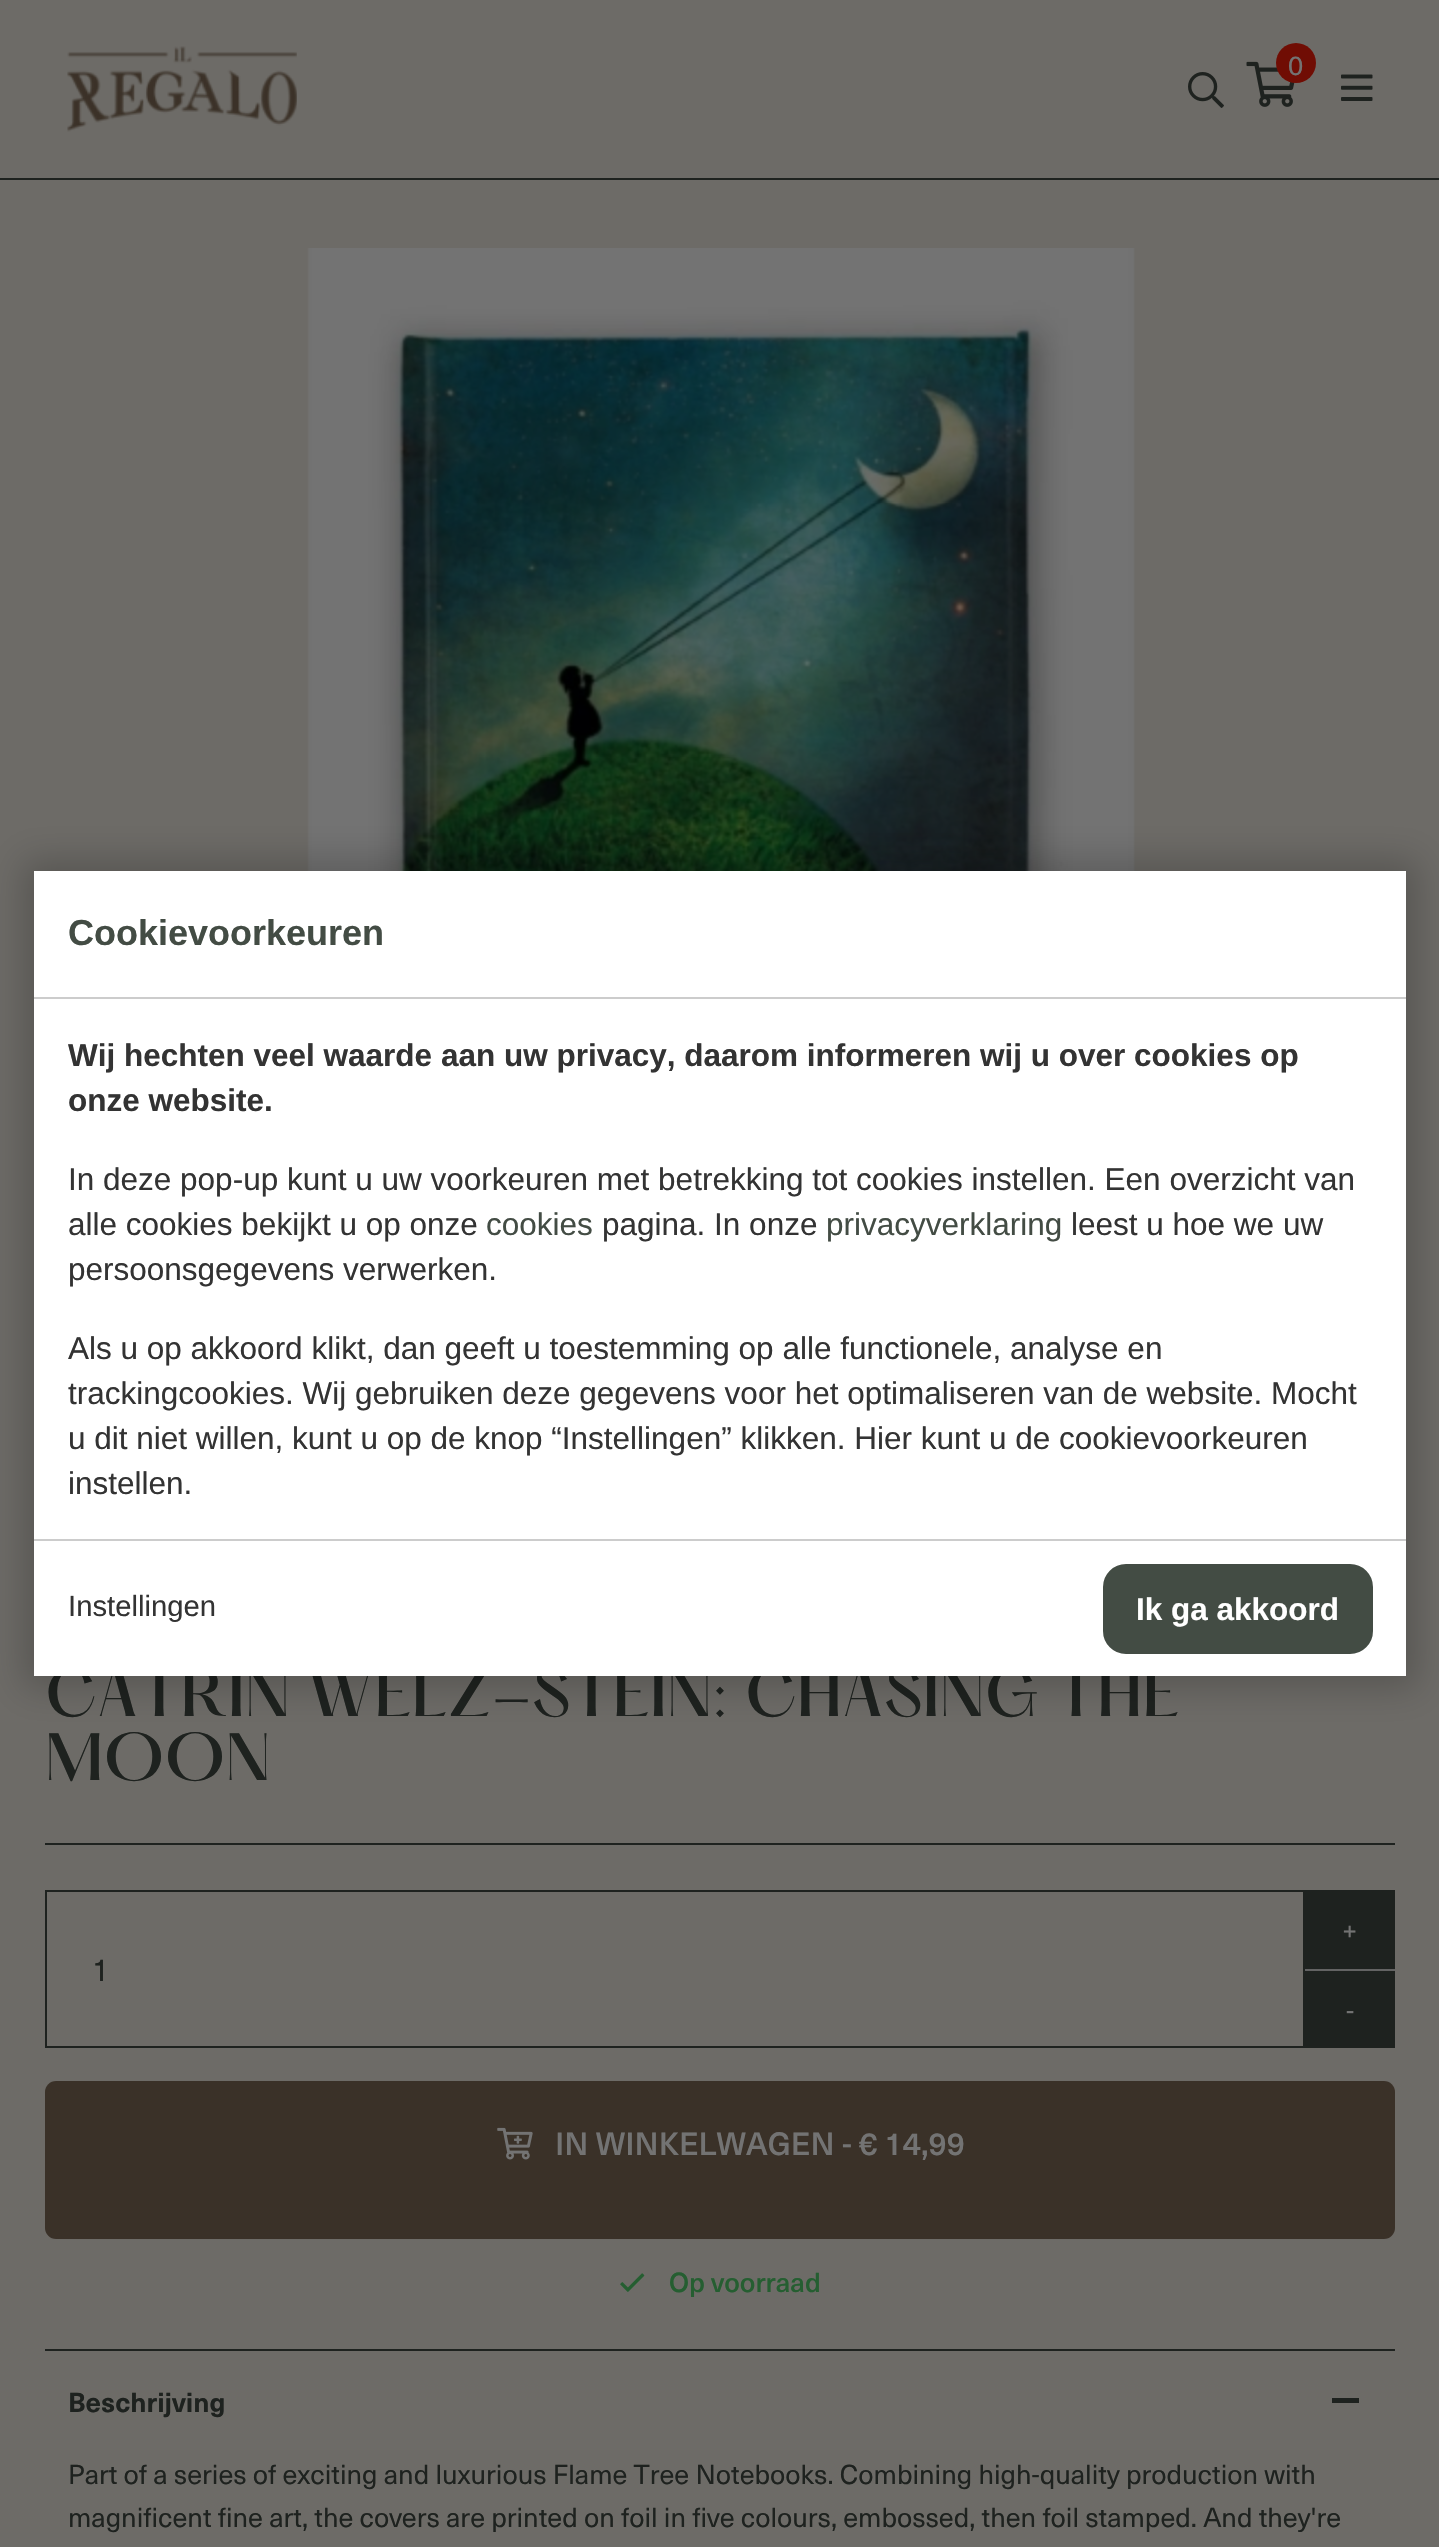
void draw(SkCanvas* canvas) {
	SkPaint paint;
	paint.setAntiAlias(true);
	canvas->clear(0xff6d6b67);
	paint.setColor(0xff1e221f);
	canvas->drawRect(SkRect::MakeXYWH(0, 178, 1439, 2), paint);
	canvas->drawImageRect(SkImages::DeferredFromEncodedData(SkData::MakeFromFileName("img1.png")), SkRect::MakeXYWH(67, 46, 230, 86), SkSamplingOptions());
	canvas->drawImageRect(SkImages::DeferredFromEncodedData(SkData::MakeFromFileName("img2.png")), SkRect::MakeXYWH(1246, 61, 49, 46), SkSamplingOptions());
	paint.setColor(0xff700d04);
	canvas->drawCircle(1296, 63, 20, paint);
	SkFont f1(fontMgr->matchFamilyStyle("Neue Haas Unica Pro", SkFontStyle::Normal()), 27);
	f1.setSubpixel(true);
	paint.setColor(0xff737373);
	canvas->drawString("0", 1288, 75, f1, paint);
	canvas->drawImageRect(SkImages::DeferredFromEncodedData(SkData::MakeFromFileName("img3.png")), SkRect::MakeXYWH(1188, 72, 36, 36), SkSamplingOptions());
	canvas->drawImageRect(SkImages::DeferredFromEncodedData(SkData::MakeFromFileName("img4.png")), SkRect::MakeXYWH(1341, 74, 32, 27), SkSamplingOptions());
	canvas->drawImageRect(SkImages::DeferredFromEncodedData(SkData::MakeFromFileName("img5.png")), SkRect::MakeXYWH(307, 248, 828, 623), SkSamplingOptions());
	SkFont f2(fontMgr->matchFamilyStyle("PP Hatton", SkFontStyle(500, SkFontStyle::kNormal_Width, SkFontStyle::kUpright_Slant)), 58.5);
	f2.setSubpixel(true);
	paint.setColor(0xff1e221f);
	canvas->drawString("CATRIN WELZ-STEIN: CHASING THE", 45, 1716, f2, paint);
	canvas->drawString("MOON", 45, 1780, f2, paint);
	canvas->drawRect(SkRect::MakeXYWH(45, 1843, 1350, 2), paint);
	paint.setStroke(true);
	paint.setStrokeWidth(2);
	canvas->drawRect(SkRect::MakeXYWH(46, 1891, 1258, 156), paint);
	SkFont f3(fontMgr->matchFamilyStyle("Neue Haas Unica Pro", SkFontStyle::Normal()), 31.5);
	f3.setSubpixel(true);
	paint.setStroke(false);
	canvas->drawString("1", 92, 1981, f3, paint);
	canvas->drawRect(SkRect::MakeXYWH(1305, 1890, 90, 79), paint);
	paint.setColor(0xff737373);
	canvas->drawString("+", 1342, 1940, f1, paint);
	paint.setColor(0xff1e221f);
	canvas->drawRect(SkRect::MakeXYWH(1305, 1971, 90, 77), paint);
	paint.setColor(0xff636363);
	canvas->drawRect(SkRect::MakeXYWH(1305, 1969, 90, 2), paint);
	paint.setColor(0xff737373);
	canvas->drawString("-", 1346, 2020, f1, paint);
	paint.setColor(0xff3a3128);
	canvas->drawRoundRect(SkRect::MakeXYWH(45, 2081, 1350, 158), 11, 11, paint);
	canvas->drawImageRect(SkImages::DeferredFromEncodedData(SkData::MakeFromFileName("img6.png")), SkRect::MakeXYWH(497, 2127, 36, 33), SkSamplingOptions());
	SkFont f4(fontMgr->matchFamilyStyle("Neue Haas Unica Pro", SkFontStyle(500, SkFontStyle::kNormal_Width, SkFontStyle::kUpright_Slant)), 31.5);
	f4.setSubpixel(true);
	paint.setColor(0xff737373);
	canvas->drawString("IN WINKELWAGEN - € 14,99", 555, 2155, f4, paint);
	canvas->drawImageRect(SkImages::DeferredFromEncodedData(SkData::MakeFromFileName("img7.png")), SkRect::MakeXYWH(620, 2273, 25, 19), SkSamplingOptions());
	SkFont f5(fontMgr->matchFamilyStyle("Neue Haas Unica Pro", SkFontStyle(500, SkFontStyle::kNormal_Width, SkFontStyle::kUpright_Slant)), 27);
	f5.setSubpixel(true);
	paint.setColor(0xff255e31);
	canvas->drawString("Op voorraad", 669, 2292, f5, paint);
	paint.setColor(0xff1e221f);
	canvas->drawRect(SkRect::MakeXYWH(45, 2349, 1350, 2), paint);
	SkFont f6(fontMgr->matchFamilyStyle("Neue Haas Unica Pro", SkFontStyle::Bold()), 27);
	f6.setSubpixel(true);
	canvas->drawString("Beschrijving", 68, 2412, f6, paint);
	canvas->drawRect(SkRect::MakeXYWH(1332, 2398, 27, 5), paint);
	canvas->drawString("Part of a series of exciting and luxurious Flame Tree Notebooks. Combining high-quality production with", 68, 2484, f1, paint);
	canvas->drawString("magnificent fine art, the covers are printed on foil in five colours, embossed, then foil stamped. And they're", 68, 2527, f1, paint);
	paint.setColor(0x33000000);
	paint.setMaskFilter(SkMaskFilter::MakeBlur(kNormal_SkBlurStyle, 17));
	canvas->drawRect(SkRect::MakeXYWH(23, 860, 1395, 828), paint);
	paint.setMaskFilter(nullptr);
	paint.setColor(0xffffffff);
	canvas->drawRect(SkRect::MakeXYWH(34, 871, 1372, 805), paint);
	paint.setColor(0xffcccccc);
	canvas->drawRect(SkRect::MakeXYWH(34, 997, 1372, 2), paint);
	SkFont f7(fontMgr->matchFamilyStyle("Liberation Sans", SkFontStyle::Bold()), 36);
	f7.setSubpixel(true);
	paint.setColor(0xff434c44);
	canvas->drawString("Cookievoorkeuren", 68, 945, f7, paint);
	SkFont f8(fontMgr->matchFamilyStyle("Liberation Sans", SkFontStyle::Bold()), 31.5);
	f8.setSubpixel(true);
	paint.setColor(0xff333333);
	canvas->drawString("Wij hechten veel waarde aan uw privacy, daarom informeren wij u over cookies op", 68, 1066, f8, paint);
	canvas->drawString("onze website.", 68, 1111, f8, paint);
	SkFont f9(fontMgr->matchFamilyStyle("Liberation Sans", SkFontStyle::Normal()), 31.5);
	f9.setSubpixel(true);
	canvas->drawString("In deze pop-up kunt u uw voorkeuren met betrekking tot cookies instellen. Een overzicht van", 68, 1190, f9, paint);
	canvas->drawString("alle cookies bekijkt u op onze", 68, 1235, f9, paint);
	paint.setColor(0xff434c44);
	canvas->drawString("cookies", 486, 1235, f9, paint);
	paint.setColor(0xff333333);
	canvas->drawString("pagina. In onze", 602, 1235, f9, paint);
	paint.setColor(0xff434c44);
	canvas->drawString("privacyverklaring", 826, 1235, f9, paint);
	paint.setColor(0xff333333);
	canvas->drawString("leest u hoe we uw", 1071, 1235, f9, paint);
	canvas->drawString("persoonsgegevens verwerken.", 68, 1280, f9, paint);
	canvas->drawString("Als u op akkoord klikt, dan geeft u toestemming op alle functionele, analyse en", 68, 1359, f9, paint);
	canvas->drawString("trackingcookies. Wij gebruiken deze gegevens voor het optimaliseren van de website. Mocht", 68, 1404, f9, paint);
	canvas->drawString("u dit niet willen, kunt u op de knop “Instellingen” klikken. Hier kunt u de cookievoorkeuren", 68, 1449, f9, paint);
	canvas->drawString("instellen.", 68, 1494, f9, paint);
	paint.setColor(0xffcccccc);
	canvas->drawRect(SkRect::MakeXYWH(34, 1539, 1372, 2), paint);
	SkFont f10(fontMgr->matchFamilyStyle("Liberation Sans", SkFontStyle::Normal()), 29.25);
	f10.setSubpixel(true);
	paint.setColor(0xff333333);
	canvas->drawString("Instellingen", 68, 1616, f10, paint);
	paint.setColor(0xff434c44);
	canvas->drawRoundRect(SkRect::MakeXYWH(1104, 1565, 268, 88), 22, 22, paint);
	paint.setStroke(true);
	canvas->drawRoundRect(SkRect::MakeXYWH(1104, 1565, 268, 88), 22, 22, paint);
	paint.setStroke(false);
	paint.setColor(0xffffffff);
	canvas->drawString("Ik ga akkoord", 1136, 1620, f8, paint);
}
